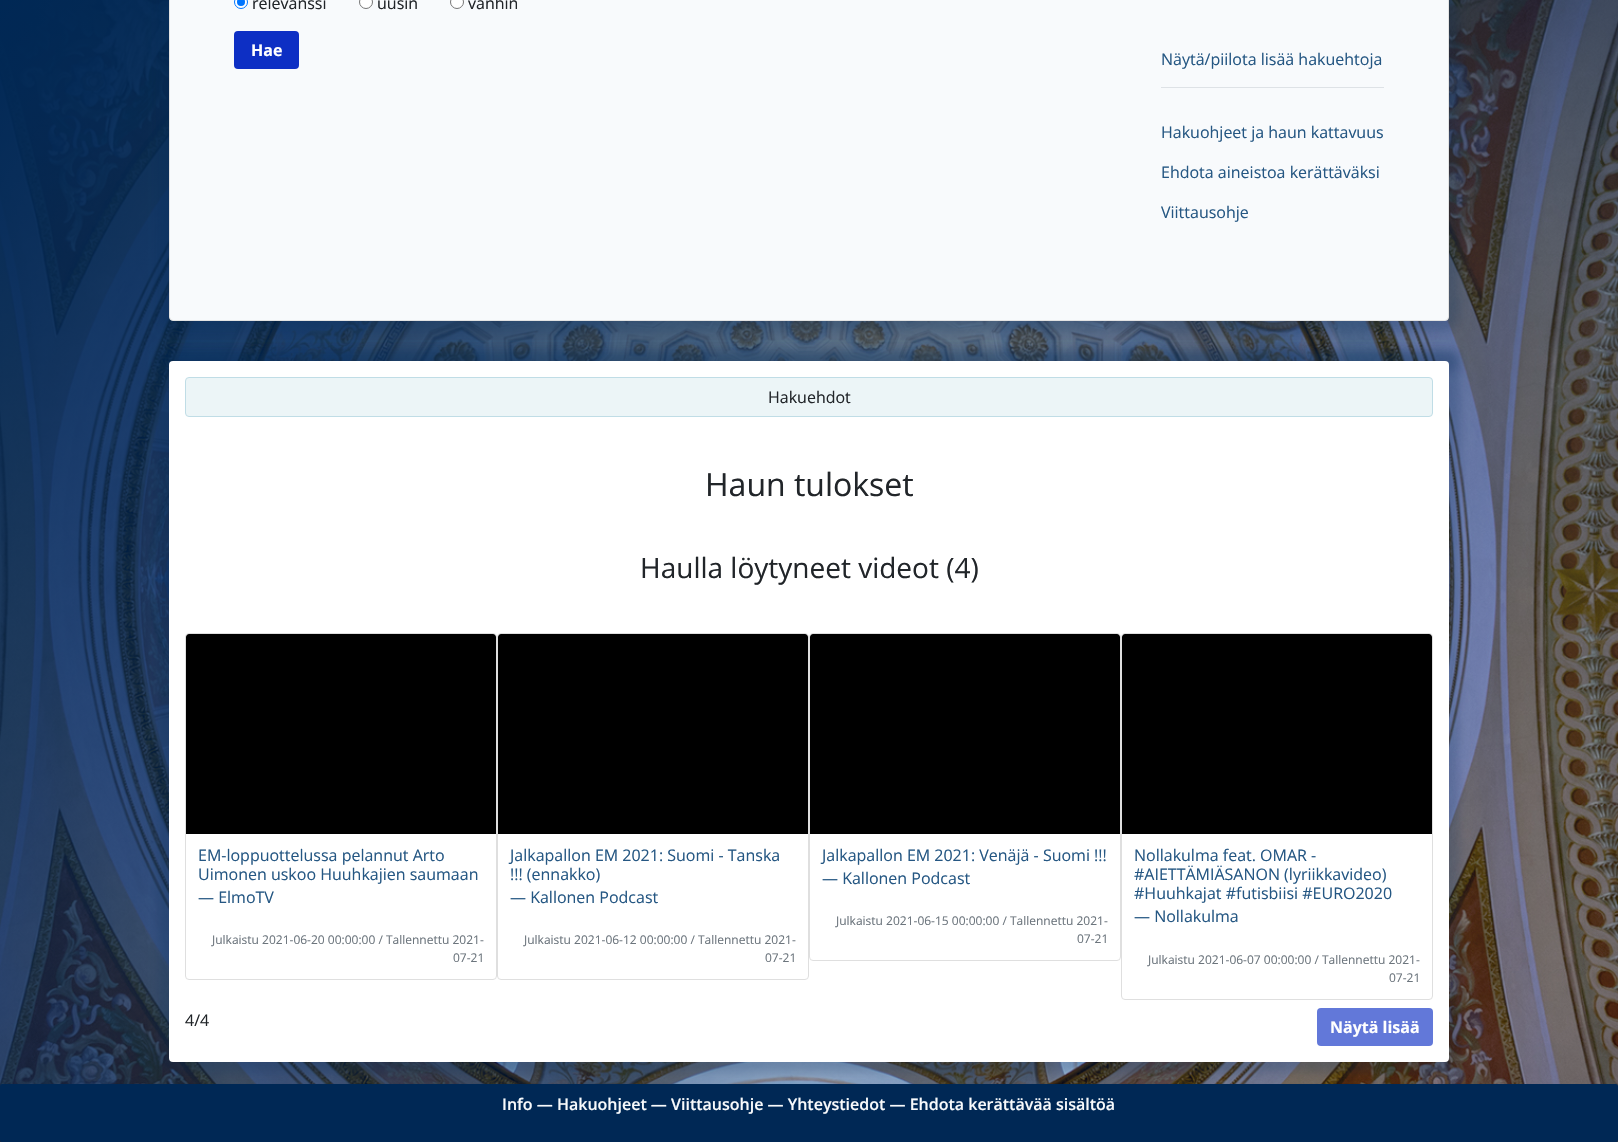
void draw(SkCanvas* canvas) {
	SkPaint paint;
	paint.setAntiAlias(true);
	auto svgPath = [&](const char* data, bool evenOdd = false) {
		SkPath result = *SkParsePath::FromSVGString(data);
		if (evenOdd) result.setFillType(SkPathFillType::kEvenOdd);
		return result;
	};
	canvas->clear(0xffffffff);
	canvas->drawImageRect(SkImages::DeferredFromEncodedData(SkData::MakeFromFileName("img1.png")), SkRect::MakeXYWH(0, 0, 1618, 1142), SkSamplingOptions());
	paint.setColor(0x33002855);
	paint.setMaskFilter(SkMaskFilter::MakeBlur(kNormal_SkBlurStyle, 5));
	canvas->drawRoundRect(SkRect::MakeXYWH(159, -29, 1300, 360), 14, 14, paint);
	paint.setMaskFilter(nullptr);
	paint.setColor(0xfff8fafc);
	canvas->drawRoundRect(SkRect::MakeXYWH(169.5, -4.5, 1279, 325), 3.5, 3.5, paint);
	paint.setStroke(true);
	paint.setStrokeWidth(1);
	paint.setColor(0xffe3e3e3);
	canvas->drawRoundRect(SkRect::MakeXYWH(169.5, -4.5, 1279, 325), 3.5, 3.5, paint);
	paint.setStroke(false);
	paint.setColor(0xffffffff);
	canvas->drawCircle(241, 2, 6.5, paint);
	paint.setStroke(true);
	paint.setColor(0xff0075ff);
	canvas->drawCircle(241, 2, 6.5, paint);
	paint.setStroke(false);
	canvas->drawCircle(241, 2, 4, paint);
	SkFont f1(fontMgr->matchFamilyStyle("Open Sans", SkFontStyle::Normal()), 16);
	f1.setSubpixel(true);
	paint.setColor(0xff212529);
	canvas->drawString("relevanssi", 252, 9, f1, paint);
	paint.setColor(0xffffffff);
	canvas->drawCircle(366, 2, 6.5, paint);
	paint.setStroke(true);
	paint.setColor(0xff767676);
	canvas->drawCircle(366, 2, 6.5, paint);
	paint.setStroke(false);
	paint.setColor(0xff212529);
	canvas->drawString("uusin", 377, 9, f1, paint);
	paint.setColor(0xffffffff);
	canvas->drawCircle(457, 2, 6.5, paint);
	paint.setStroke(true);
	paint.setColor(0xff767676);
	canvas->drawCircle(457, 2, 6.5, paint);
	paint.setStroke(false);
	paint.setColor(0xff212529);
	canvas->drawString("vanhin", 468, 9, f1, paint);
	paint.setColor(0xff0d2fc4);
	canvas->drawRoundRect(SkRect::MakeXYWH(234, 31, 65, 38), 4, 4, paint);
	SkFont f2(fontMgr->matchFamilyStyle("Open Sans", SkFontStyle::Bold()), 16);
	f2.setSubpixel(true);
	paint.setColor(0xffffffff);
	canvas->drawString("Hae", 251, 56, f2, paint);
	paint.setColor(0xffdee2e6);
	canvas->drawRect(SkRect::MakeXYWH(1161, 87, 223, 1), paint);
	paint.setColor(0xff255783);
	canvas->drawString("Näytä/piilota lisää hakuehtoja", 1161, 65, f1, paint);
	canvas->drawString("Hakuohjeet ja haun kattavuus", 1161, 138, f1, paint);
	canvas->drawString("Ehdota aineistoa kerättäväksi", 1161, 178, f1, paint);
	canvas->drawString("Viittausohje", 1161, 218, f1, paint);
	paint.setColor(0x33002855);
	paint.setMaskFilter(SkMaskFilter::MakeBlur(kNormal_SkBlurStyle, 5));
	canvas->drawRect(SkRect::MakeXYWH(159, 351, 1300, 20), paint);
	paint.setMaskFilter(nullptr);
	paint.setMaskFilter(SkMaskFilter::MakeBlur(kNormal_SkBlurStyle, 5));
	canvas->drawRoundRect(SkRect::MakeXYWH(159, 351, 1300, 721), 14, 14, paint);
	paint.setMaskFilter(nullptr);
	paint.setColor(0xffffffff);
	canvas->drawRoundRect(SkRect::MakeXYWH(169, 361, 1280, 701), 4, 4, paint);
	paint.setColor(0xffecf5f7);
	canvas->drawRoundRect(SkRect::MakeXYWH(185.5, 377.5, 1247, 39), 3.5, 3.5, paint);
	paint.setStroke(true);
	paint.setColor(0xffc0dde6);
	canvas->drawRoundRect(SkRect::MakeXYWH(185.5, 377.5, 1247, 39), 3.5, 3.5, paint);
	paint.setStroke(false);
	paint.setColor(0xff212529);
	canvas->drawString("Hakuehdot", 768, 403, f1, paint);
	SkFont f3(fontMgr->matchFamilyStyle("Open Sans", SkFontStyle::Normal()), 32);
	f3.setSubpixel(true);
	canvas->drawString("Haun tulokset", 705, 496, f3, paint);
	SkFont f4(fontMgr->matchFamilyStyle("Open Sans", SkFontStyle::Normal()), 28);
	f4.setSubpixel(true);
	canvas->drawString("Haulla löytyneet videot (4)", 640, 578, f4, paint);
	paint.setStroke(true);
	paint.setColor(0xffdfdfdf);
	canvas->drawRoundRect(SkRect::MakeXYWH(185.5, 633.5, 311, 346), 3.5, 3.5, paint);
	paint.setStroke(false);
	paint.setColor(0xff000000);
	canvas->drawPath(svgPath("M189 634H493C494.5 634 496 635.5 496 637V834H186V637C186 635.5 187.5 634 189 634Z"), paint);
	paint.setColor(0xff255783);
	canvas->drawString("EM-loppuottelussa pelannut Arto", 198, 861, f1, paint);
	canvas->drawString("Uimonen uskoo Huuhkajien saumaan", 198, 880, f1, paint);
	canvas->drawString("― ElmoTV", 198, 903, f1, paint);
	SkFont f5(fontMgr->matchFamilyStyle("Open Sans", SkFontStyle::Normal()), 12);
	f5.setSubpixel(true);
	paint.setColor(0xff6c757d);
	canvas->drawString("Julkaistu 2021-06-20 00:00:00 / Tallennettu 2021-", 212, 944, f5, paint);
	canvas->drawString("07-21", 453, 962, f5, paint);
	paint.setStroke(true);
	paint.setColor(0xffdfdfdf);
	canvas->drawRoundRect(SkRect::MakeXYWH(497.5, 633.5, 311, 346), 3.5, 3.5, paint);
	paint.setStroke(false);
	paint.setColor(0xff000000);
	canvas->drawPath(svgPath("M501 634H805C806.5 634 808 635.5 808 637V834H498V637C498 635.5 499.5 634 501 634Z"), paint);
	paint.setColor(0xff255783);
	canvas->drawString("Jalkapallon EM 2021: Suomi - Tanska", 510, 861, f1, paint);
	canvas->drawString("!!! (ennakko)", 510, 880, f1, paint);
	canvas->drawString("― Kallonen Podcast", 510, 903, f1, paint);
	paint.setColor(0xff6c757d);
	canvas->drawString("Julkaistu 2021-06-12 00:00:00 / Tallennettu 2021-", 524, 944, f5, paint);
	canvas->drawString("07-21", 765, 962, f5, paint);
	paint.setStroke(true);
	paint.setColor(0xffdfdfdf);
	canvas->drawRoundRect(SkRect::MakeXYWH(809.5, 633.5, 311, 327), 3.5, 3.5, paint);
	paint.setStroke(false);
	paint.setColor(0xff000000);
	canvas->drawPath(svgPath("M813 634H1117C1118.5 634 1120 635.5 1120 637V834H810V637C810 635.5 811.5 634 813 634Z"), paint);
	paint.setColor(0xff255783);
	canvas->drawString("Jalkapallon EM 2021: Venäjä - Suomi !!!", 822, 861, f1, paint);
	canvas->drawString("― Kallonen Podcast", 822, 884, f1, paint);
	paint.setColor(0xff6c757d);
	canvas->drawString("Julkaistu 2021-06-15 00:00:00 / Tallennettu 2021-", 836, 925, f5, paint);
	canvas->drawString("07-21", 1077, 943, f5, paint);
	paint.setStroke(true);
	paint.setColor(0xffdfdfdf);
	canvas->drawRoundRect(SkRect::MakeXYWH(1121.5, 633.5, 311, 366), 3.5, 3.5, paint);
	paint.setStroke(false);
	paint.setColor(0xff000000);
	canvas->drawPath(svgPath("M1125 634H1429C1430.5 634 1432 635.5 1432 637V834H1122V637C1122 635.5 1123.5 634 1125 634Z"), paint);
	paint.setColor(0xff255783);
	canvas->drawString("Nollakulma feat. OMAR -", 1134, 861, f1, paint);
	canvas->drawString("#AIETTÄMIÄSANON (lyriikkavideo)", 1134, 880, f1, paint);
	canvas->drawString("#Huuhkajat #futisbiisi #EURO2020", 1134, 899, f1, paint);
	canvas->drawString("― Nollakulma", 1134, 922, f1, paint);
	paint.setColor(0xff6c757d);
	canvas->drawString("Julkaistu 2021-06-07 00:00:00 / Tallennettu 2021-", 1148, 964, f5, paint);
	canvas->drawString("07-21", 1389, 982, f5, paint);
	paint.setColor(0xff212529);
	canvas->drawString("4/4", 185, 1026, f1, paint);
	paint.setColor(0xff6278d9);
	canvas->drawRoundRect(SkRect::MakeXYWH(1317, 1008, 116, 38), 4, 4, paint);
	paint.setColor(0xffffffff);
	canvas->drawString("Näytä lisää", 1330, 1033, f2, paint);
	paint.setColor(0xff002855);
	canvas->drawRoundRect(SkRect::MakeXYWH(0, 1084, 1618, 58), 2, 2, paint);
	canvas->drawRect(SkRect::MakeXYWH(1, 1141, 1616, 1), paint);
	SkFont f6(fontMgr->matchFamilyStyle("Open Sans", SkFontStyle(600, SkFontStyle::kNormal_Width, SkFontStyle::kUpright_Slant)), 16);
	f6.setSubpixel(true);
	paint.setColor(0xfff8fafc);
	canvas->drawString("Info ― Hakuohjeet ― Viittausohje ― Yhteystiedot ― Ehdota kerättävää sisältöä", 502, 1110, f6, paint);
}
